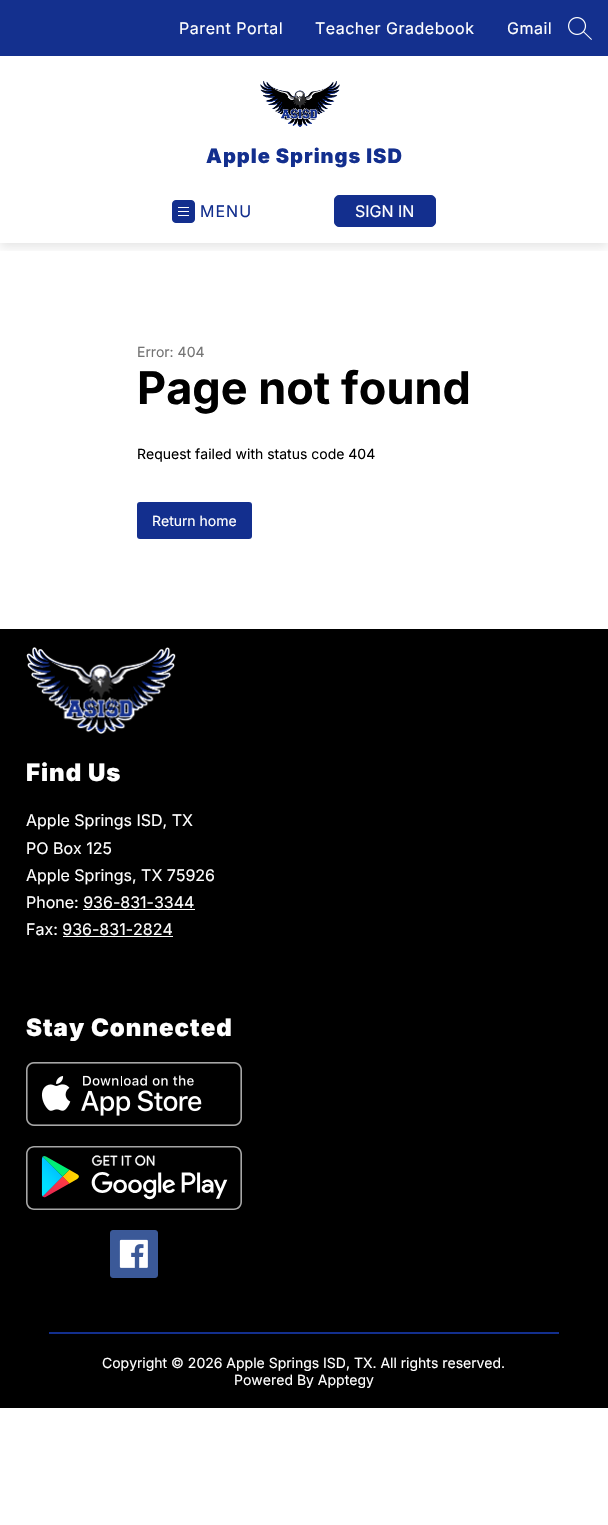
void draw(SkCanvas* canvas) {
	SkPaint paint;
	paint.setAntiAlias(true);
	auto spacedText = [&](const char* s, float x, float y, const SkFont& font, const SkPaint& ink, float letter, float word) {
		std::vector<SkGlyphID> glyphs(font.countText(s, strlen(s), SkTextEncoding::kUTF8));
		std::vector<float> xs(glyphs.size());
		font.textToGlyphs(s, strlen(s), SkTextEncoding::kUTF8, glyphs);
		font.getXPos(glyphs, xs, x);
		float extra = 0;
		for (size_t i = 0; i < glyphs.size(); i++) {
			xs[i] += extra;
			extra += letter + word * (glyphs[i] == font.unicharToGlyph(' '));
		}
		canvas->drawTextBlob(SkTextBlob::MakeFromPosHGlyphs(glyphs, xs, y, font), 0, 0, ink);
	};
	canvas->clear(0xffffffff);
	canvas->save();
	canvas->clipRect(SkRect::MakeXYWH(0, 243, 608, 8));
	paint.setColor(0x1a000000);
	paint.setMaskFilter(SkMaskFilter::MakeBlur(kNormal_SkBlurStyle, 5));
	canvas->drawRect(SkRect::MakeXYWH(0, 4, 608, 243), paint);
	paint.setMaskFilter(nullptr);
	canvas->restore();
	paint.setColor(0xff14308e);
	canvas->drawRect(SkRect::MakeXYWH(0, 0, 608, 56), paint);
	SkFont f1(fontMgr->matchFamilyStyle("Inter", SkFontStyle::Normal()), 16);
	f1.setSubpixel(true);
	paint.setColor(0xffffffff);
	spacedText("Parent Portal", 179, 34, f1, paint, 0.5, 0);
	spacedText("Teacher Gradebook", 315, 34, f1, paint, 0.5, 0);
	spacedText("Gmail", 507, 34, f1, paint, 0.5, 0);
	canvas->drawImageRect(SkImages::DeferredFromEncodedData(SkData::MakeFromFileName("img1.png")), SkRect::MakeXYWH(568, 17, 24, 23), SkSamplingOptions());
	canvas->drawImageRect(SkImages::DeferredFromEncodedData(SkData::MakeFromFileName("img2.png")), SkRect::MakeXYWH(260, 80, 80, 47), SkSamplingOptions());
	SkFont f2(fontMgr->matchFamilyStyle("Inter", SkFontStyle(900, SkFontStyle::kNormal_Width, SkFontStyle::kUpright_Slant)), 20);
	f2.setSubpixel(true);
	paint.setColor(0xff132f8e);
	spacedText("Apple Springs ISD", 206, 163, f2, paint, 1, 0);
	canvas->drawImageRect(SkImages::DeferredFromEncodedData(SkData::MakeFromFileName("img3.png")), SkRect::MakeXYWH(172, 200, 23, 23), SkSamplingOptions());
	spacedText("MENU", 200, 217, f1, paint, 1, 0);
	canvas->drawRoundRect(SkRect::MakeXYWH(334.5, 195.5, 101, 31), 4.5, 4.5, paint);
	paint.setStroke(true);
	paint.setStrokeWidth(1);
	canvas->drawRoundRect(SkRect::MakeXYWH(334.5, 195.5, 101, 31), 4.5, 4.5, paint);
	paint.setStroke(false);
	paint.setColor(0xffffffff);
	canvas->drawString("SIGN IN", 355, 217, f1, paint);
	SkFont f3(fontMgr->matchFamilyStyle("Inter", SkFontStyle::Normal()), 14);
	f3.setSubpixel(true);
	paint.setColor(0xff747474);
	canvas->drawString("Error: 404", 137, 357, f3, paint);
	SkFont f4(fontMgr->matchFamilyStyle("Inter", SkFontStyle::Bold()), 45);
	f4.setSubpixel(true);
	paint.setColor(0xff000000);
	canvas->drawString("Page not found", 137, 404, f4, paint);
	canvas->drawString("Request failed with status code 404", 137, 459, f3, paint);
	paint.setColor(0xff132f8e);
	canvas->drawRoundRect(SkRect::MakeXYWH(137, 502, 115, 37), 3, 3, paint);
	paint.setColor(0xffffffff);
	canvas->drawString("Return home", 152, 526, f3, paint);
	paint.setColor(0xff000000);
	canvas->drawRect(SkRect::MakeXYWH(0, 629, 608, 779), paint);
	canvas->drawImageRect(SkImages::DeferredFromEncodedData(SkData::MakeFromFileName("img4.png")), SkRect::MakeXYWH(26, 647, 150, 87), SkSamplingOptions());
	SkFont f5(fontMgr->matchFamilyStyle("Inter", SkFontStyle(900, SkFontStyle::kNormal_Width, SkFontStyle::kUpright_Slant)), 24);
	f5.setSubpixel(true);
	paint.setColor(0xffffffff);
	spacedText("Find Us", 26, 781, f5, paint, 1, 0);
	canvas->drawString("Apple Springs ISD, TX", 26, 826, f1, paint);
	canvas->drawString("PO Box 125", 26, 854, f1, paint);
	canvas->drawString("Apple Springs, TX 75926", 26, 881, f1, paint);
	canvas->drawString("Phone: 936-831-3344", 26, 908, f1, paint);
	canvas->drawRect(SkRect::MakeXYWH(83, 909, 112, 1), paint);
	canvas->drawString("Fax: 936-831-2824", 26, 935, f1, paint);
	canvas->drawRect(SkRect::MakeXYWH(63, 936, 110, 1), paint);
	spacedText("Stay Connected", 26, 1036, f5, paint, 1, 0);
	canvas->drawImageRect(SkImages::DeferredFromEncodedData(SkData::MakeFromFileName("img5.png")), SkRect::MakeXYWH(26, 1062, 216, 64), SkSamplingOptions());
	canvas->drawImageRect(SkImages::DeferredFromEncodedData(SkData::MakeFromFileName("img6.png")), SkRect::MakeXYWH(26, 1146, 216, 64), SkSamplingOptions());
	canvas->drawImageRect(SkImages::DeferredFromEncodedData(SkData::MakeFromFileName("img7.png")), SkRect::MakeXYWH(110, 1230, 48, 48), SkSamplingOptions());
	paint.setColor(0xff132f8e);
	canvas->drawRect(SkRect::MakeXYWH(49, 1332, 510, 2), paint);
	paint.setColor(0xffffffff);
	canvas->drawString("Copyright © 2026 Apple Springs ISD, TX. All rights reserved.", 102, 1368, f3, paint);
	canvas->drawString("Powered By Apptegy", 234, 1385, f3, paint);
}
